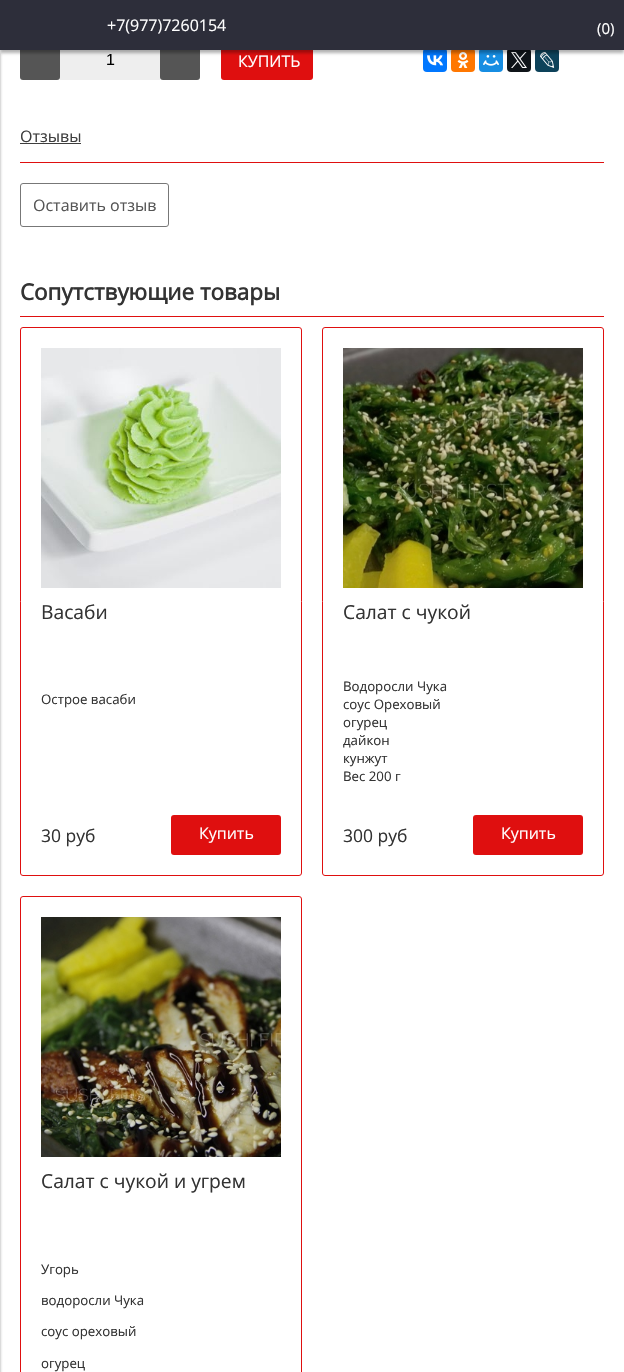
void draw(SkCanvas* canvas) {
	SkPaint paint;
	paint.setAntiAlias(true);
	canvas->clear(0xffffffff);
	paint.setColor(0xff555555);
	canvas->drawRoundRect(SkRect::MakeXYWH(20, 40, 40, 40), 3, 3, paint);
	paint.setColor(0xffeeeeee);
	canvas->drawRect(SkRect::MakeXYWH(60, 50, 100, 30), paint);
	paint.setColor(0xff555555);
	canvas->drawRoundRect(SkRect::MakeXYWH(160, 40, 40, 40), 3, 3, paint);
	paint.setColor(0xffdf0f0f);
	canvas->drawRoundRect(SkRect::MakeXYWH(221, 40, 92, 40), 3, 3, paint);
	paint.setColor(0xff0077ff);
	canvas->drawRoundRect(SkRect::MakeXYWH(423, 48, 24, 24), 4, 4, paint);
	canvas->drawImageRect(SkImages::DeferredFromEncodedData(SkData::MakeFromFileName("img1.png")), SkRect::MakeXYWH(427, 55, 16, 11), SkSamplingOptions());
	paint.setColor(0xffff7700);
	canvas->drawRoundRect(SkRect::MakeXYWH(451, 48, 24, 24), 4, 4, paint);
	canvas->drawImageRect(SkImages::DeferredFromEncodedData(SkData::MakeFromFileName("img2.png")), SkRect::MakeXYWH(457, 52, 12, 16), SkSamplingOptions());
	paint.setColor(0xff168de2);
	canvas->drawRoundRect(SkRect::MakeXYWH(479, 48, 24, 24), 4, 4, paint);
	canvas->drawImageRect(SkImages::DeferredFromEncodedData(SkData::MakeFromFileName("img3.png")), SkRect::MakeXYWH(483, 55, 16, 11), SkSamplingOptions());
	paint.setColor(0xff0f1419);
	canvas->drawRoundRect(SkRect::MakeXYWH(507, 48, 24, 24), 4, 4, paint);
	canvas->drawImageRect(SkImages::DeferredFromEncodedData(SkData::MakeFromFileName("img4.png")), SkRect::MakeXYWH(511, 52, 16, 16), SkSamplingOptions());
	paint.setColor(0xff0d425a);
	canvas->drawRoundRect(SkRect::MakeXYWH(535, 48, 24, 24), 4, 4, paint);
	canvas->drawImageRect(SkImages::DeferredFromEncodedData(SkData::MakeFromFileName("img5.png")), SkRect::MakeXYWH(540, 52, 15, 16), SkSamplingOptions());
	paint.setColor(0x4d000000);
	paint.setMaskFilter(SkMaskFilter::MakeBlur(kNormal_SkBlurStyle, 1.5));
	canvas->drawRect(SkRect::MakeXYWH(0, 3, 624, 50), paint);
	paint.setMaskFilter(nullptr);
	paint.setColor(0xff2d2e3a);
	canvas->drawRect(SkRect::MakeXYWH(0, 0, 624, 50), paint);
	SkFont f1(fontMgr->matchFamilyStyle("Open Sans", SkFontStyle::Normal()), 16);
	f1.setSubpixel(true);
	paint.setColor(0xffffffff);
	canvas->drawString("+7(977)7260154", 107, 31, f1, paint);
	SkFont f2(fontMgr->matchFamilyStyle("Open Sans", SkFontStyle::Normal()), 15);
	f2.setSubpixel(true);
	canvas->drawString("(0)", 597, 34, f2, paint);
	paint.setColor(0x66000000);
	paint.setMaskFilter(SkMaskFilter::MakeBlur(kNormal_SkBlurStyle, 1.5));
	canvas->drawRect(SkRect::MakeXYWH(-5, 53, 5, 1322), paint);
	paint.setMaskFilter(nullptr);
	SkFont f3(fontMgr->matchFamilyStyle("Liberation Sans", SkFontStyle::Normal()), 16);
	f3.setSubpixel(true);
	paint.setColor(0xff000000);
	canvas->drawString("1", 106, 65, f3, paint);
	paint.setColor(0xffffffff);
	canvas->drawString("КУПИТЬ", 238, 67, f1, paint);
	paint.setColor(0xffdf0f0f);
	canvas->drawRect(SkRect::MakeXYWH(20, 162, 584, 1), paint);
	paint.setColor(0xff3e3e3e);
	canvas->drawString("Отзывы", 20, 142, f1, paint);
	canvas->drawRect(SkRect::MakeXYWH(20, 143, 61, 1), paint);
	paint.setStroke(true);
	paint.setStrokeWidth(1);
	paint.setColor(0xff777777);
	canvas->drawRoundRect(SkRect::MakeXYWH(20.5, 183.5, 148, 43), 2.5, 2.5, paint);
	paint.setStroke(false);
	paint.setColor(0xff555555);
	canvas->drawString("Оставить отзыв", 33, 211, f1, paint);
	paint.setColor(0xffdf0f0f);
	canvas->drawRect(SkRect::MakeXYWH(20, 316, 584, 1), paint);
	SkFont f4(fontMgr->matchFamilyStyle("Open Sans", SkFontStyle::Bold()), 22.4);
	f4.setSubpixel(true);
	paint.setColor(0xff333333);
	canvas->drawString("Сопутствующие товары", 20, 300, f4, paint);
	paint.setStroke(true);
	paint.setColor(0xffdf0f0f);
	canvas->drawRoundRect(SkRect::MakeXYWH(20.5, 327.5, 281, 548), 2.5, 2.5, paint);
	canvas->drawImageRect(SkImages::DeferredFromEncodedData(SkData::MakeFromFileName("img6.png")), SkRect::MakeXYWH(41, 348, 240, 240), SkSamplingOptions());
	SkFont f5(fontMgr->matchFamilyStyle("Open Sans", SkFontStyle::Normal()), 19.25);
	f5.setSubpixel(true);
	paint.setStroke(false);
	paint.setColor(0xff333333);
	canvas->drawString("Васаби", 41, 619, f5, paint);
	SkFont f6(fontMgr->matchFamilyStyle("Open Sans", SkFontStyle::Normal()), 13.25);
	f6.setSubpixel(true);
	canvas->drawString("Острое васаби", 41, 704, f6, paint);
	SkFont f7(fontMgr->matchFamilyStyle("Open Sans", SkFontStyle::Normal()), 17.5);
	f7.setSubpixel(true);
	canvas->drawString("30 руб", 41, 842, f7, paint);
	paint.setColor(0xffdf0f0f);
	canvas->drawRoundRect(SkRect::MakeXYWH(171, 815, 110, 40), 3, 3, paint);
	paint.setColor(0xffffffff);
	canvas->drawString("Купить", 199, 839, f1, paint);
	paint.setStroke(true);
	paint.setColor(0xffdf0f0f);
	canvas->drawRoundRect(SkRect::MakeXYWH(322.5, 327.5, 281, 548), 2.5, 2.5, paint);
	canvas->drawImageRect(SkImages::DeferredFromEncodedData(SkData::MakeFromFileName("img7.png")), SkRect::MakeXYWH(343, 348, 240, 240), SkSamplingOptions());
	paint.setStroke(false);
	paint.setColor(0xff333333);
	canvas->drawString("Салат с чукой", 343, 619, f5, paint);
	canvas->drawString("Водоросли Чука", 343, 691, f6, paint);
	canvas->drawString("соус Ореховый", 343, 709, f6, paint);
	canvas->drawString("огурец", 343, 727, f6, paint);
	canvas->drawString("дайкон", 343, 745, f6, paint);
	canvas->drawString("кунжут", 343, 763, f6, paint);
	canvas->drawString("Вес 200 г", 343, 781, f6, paint);
	canvas->drawString("300 руб", 343, 842, f7, paint);
	paint.setColor(0xffdf0f0f);
	canvas->drawRoundRect(SkRect::MakeXYWH(473, 815, 110, 40), 3, 3, paint);
	paint.setColor(0xffffffff);
	canvas->drawString("Купить", 501, 839, f1, paint);
	paint.setStroke(true);
	paint.setColor(0xffdf0f0f);
	canvas->drawRoundRect(SkRect::MakeXYWH(20.5, 896.5, 281, 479), 2.5, 2.5, paint);
	canvas->drawImageRect(SkImages::DeferredFromEncodedData(SkData::MakeFromFileName("img8.png")), SkRect::MakeXYWH(41, 917, 240, 240), SkSamplingOptions());
	paint.setStroke(false);
	paint.setColor(0xff333333);
	canvas->drawString("Салат с чукой и угрем", 41, 1188, f5, paint);
	canvas->drawString("Угорь", 41, 1274, f6, paint);
	canvas->drawString("водоросли Чука", 41, 1305, f6, paint);
	canvas->drawString("соус ореховый", 41, 1336, f6, paint);
	canvas->drawString("огурец", 41, 1368, f6, paint);
}
